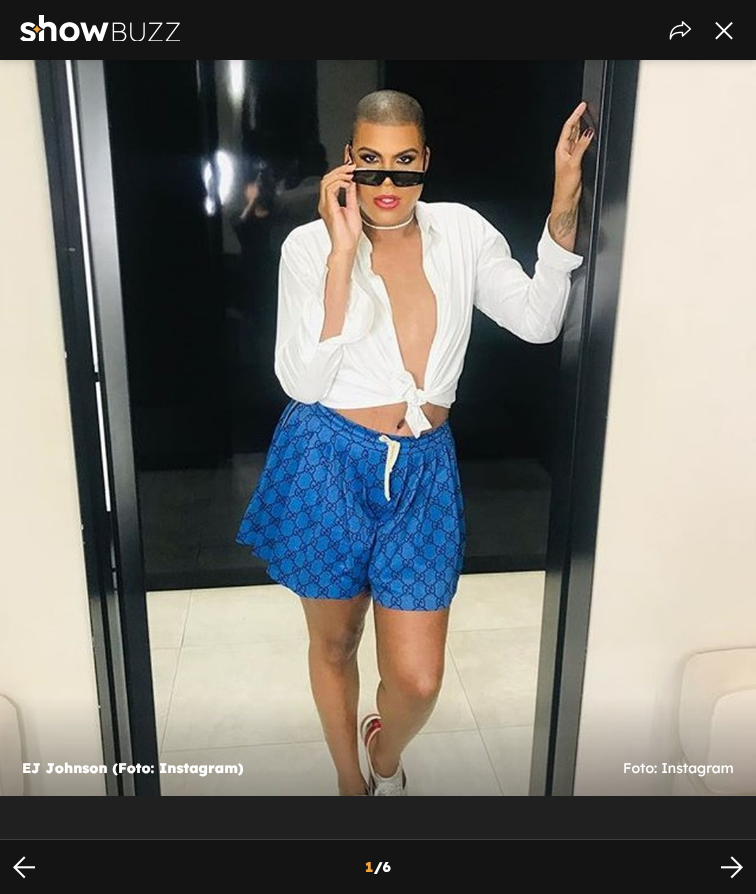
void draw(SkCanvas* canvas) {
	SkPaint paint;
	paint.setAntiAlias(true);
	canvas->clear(0xff202020);
	canvas->drawImageRect(SkImages::DeferredFromEncodedData(SkData::MakeFromFileName("img4.png")), SkRect::MakeXYWH(0, 60, 756, 736), SkSamplingOptions());
	paint.setColor(0x26000000);
	paint.setMaskFilter(SkMaskFilter::MakeBlur(kNormal_SkBlurStyle, 3.5));
	canvas->drawRect(SkRect::MakeXYWH(0, 2, 756, 60), paint);
	paint.setMaskFilter(nullptr);
	paint.setColor(0xff141414);
	canvas->drawRect(SkRect::MakeXYWH(0, 0, 756, 60), paint);
	canvas->drawImageRect(SkImages::DeferredFromEncodedData(SkData::MakeFromFileName("img1.png")), SkRect::MakeXYWH(20, 15, 160, 26), SkSamplingOptions());
	canvas->drawImageRect(SkImages::DeferredFromEncodedData(SkData::MakeFromFileName("img2.png")), SkRect::MakeXYWH(669, 21, 23, 19), SkSamplingOptions());
	canvas->drawImageRect(SkImages::DeferredFromEncodedData(SkData::MakeFromFileName("img3.png")), SkRect::MakeXYWH(715, 22, 18, 18), SkSamplingOptions());
	SkFont f1(fontMgr->matchFamilyStyle("Lexend", SkFontStyle(800, SkFontStyle::kNormal_Width, SkFontStyle::kUpright_Slant)), 14);
	f1.setSubpixel(true);
	paint.setColor(0xffffffff);
	canvas->drawString("EJ Johnson (Foto: Instagram)", 22, 773, f1, paint);
	SkFont f2(fontMgr->matchFamilyStyle("Lexend", SkFontStyle::Normal()), 14);
	f2.setSubpixel(true);
	canvas->drawString("Foto: Instagram", 623, 773, f2, paint);
	paint.setColor(0xff141414);
	canvas->drawRect(SkRect::MakeXYWH(0, 840, 756, 54), paint);
	paint.setColor(0xff3d3d3d);
	canvas->drawRect(SkRect::MakeXYWH(0, 839, 756, 1), paint);
	canvas->drawImageRect(SkImages::DeferredFromEncodedData(SkData::MakeFromFileName("img5.png")), SkRect::MakeXYWH(13, 856, 22, 23), SkSamplingOptions());
	paint.setColor(0xfff2a444);
	canvas->drawString("1", 365, 872, f1, paint);
	paint.setColor(0xffffffff);
	canvas->drawString("/6", 374, 872, f1, paint);
	canvas->drawImageRect(SkImages::DeferredFromEncodedData(SkData::MakeFromFileName("img6.png")), SkRect::MakeXYWH(721, 856, 22, 23), SkSamplingOptions());
}
